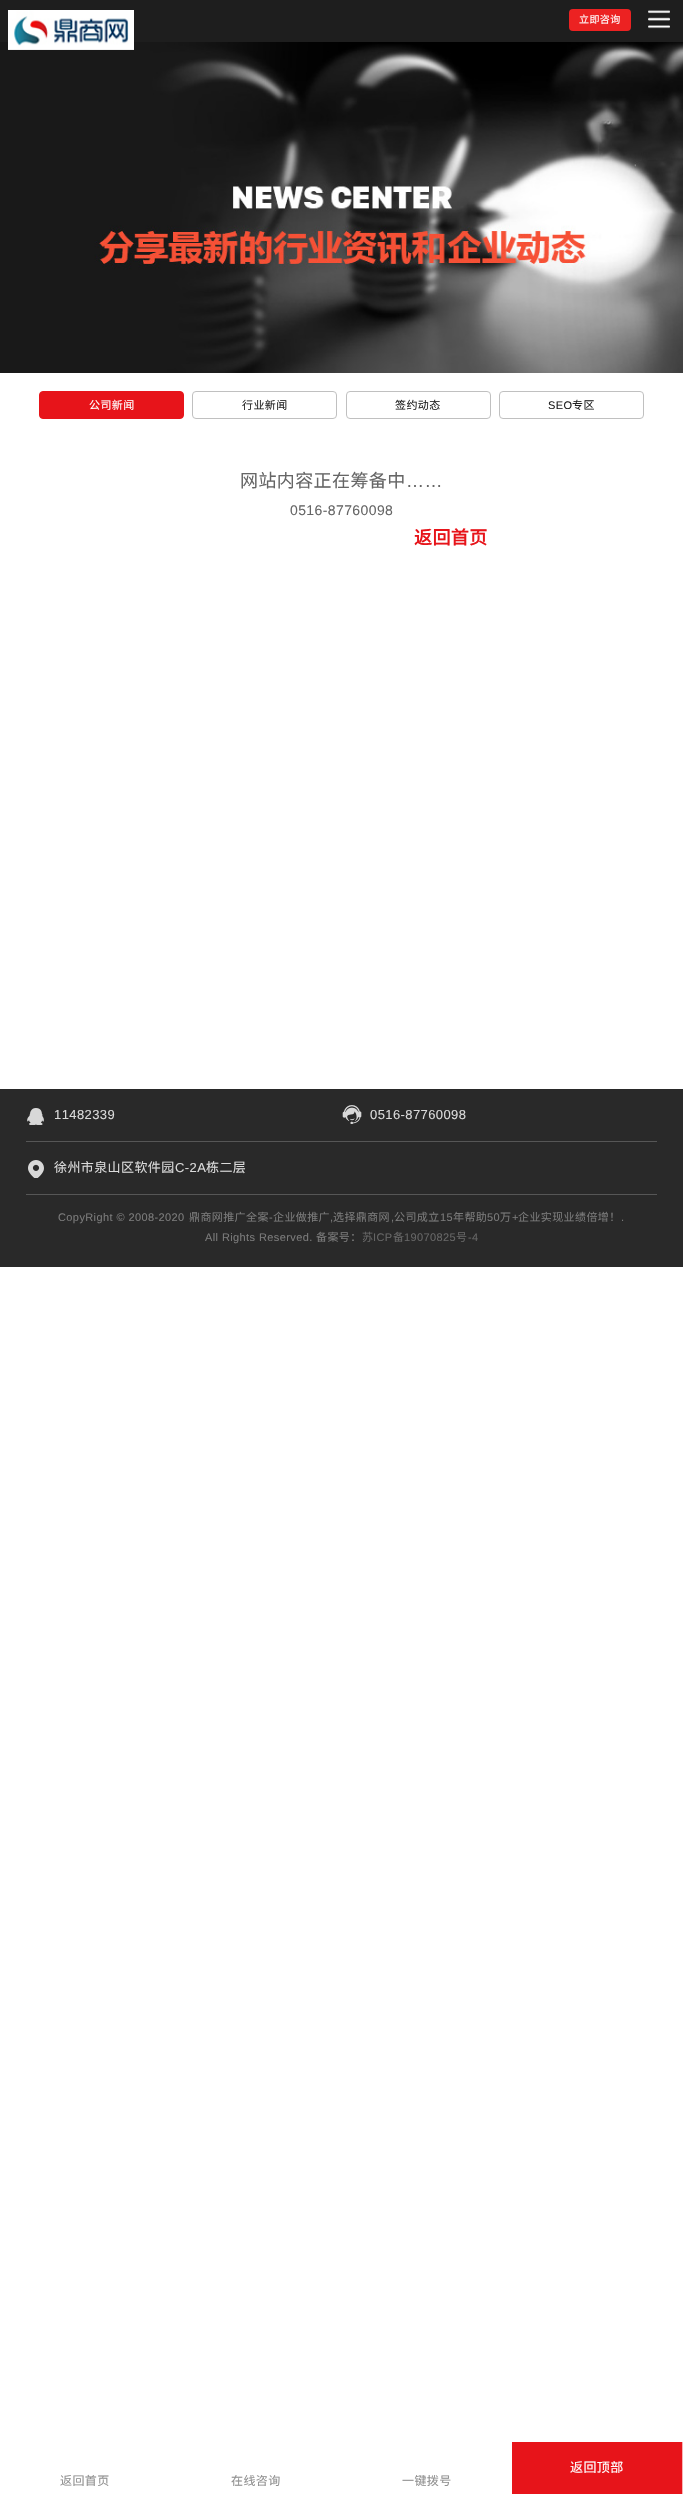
void draw(SkCanvas* canvas) {
	SkPaint paint;
	paint.setAntiAlias(true);
	auto spacedText = [&](const char* s, float x, float y, const SkFont& font, const SkPaint& ink, float letter, float word) {
		std::vector<SkGlyphID> glyphs(font.countText(s, strlen(s), SkTextEncoding::kUTF8));
		std::vector<float> xs(glyphs.size());
		font.textToGlyphs(s, strlen(s), SkTextEncoding::kUTF8, glyphs);
		font.getXPos(glyphs, xs, x);
		float extra = 0;
		for (size_t i = 0; i < glyphs.size(); i++) {
			xs[i] += extra;
			extra += letter + word * (glyphs[i] == font.unicharToGlyph(' '));
		}
		canvas->drawTextBlob(SkTextBlob::MakeFromPosHGlyphs(glyphs, xs, y, font), 0, 0, ink);
	};
	canvas->clear(0xffffffff);
	paint.setColor(0xff1e1e1e);
	canvas->drawRect(SkRect::MakeXYWH(0, 0, 683, 42), paint);
	canvas->drawImageRect(SkImages::DeferredFromEncodedData(SkData::MakeFromFileName("img3.png")), SkRect::MakeXYWH(0, 42, 683, 331), SkSamplingOptions());
	canvas->drawImageRect(SkImages::DeferredFromEncodedData(SkData::MakeFromFileName("img1.png")), SkRect::MakeXYWH(8, 10, 126, 40), SkSamplingOptions());
	paint.setColor(0xffec2222);
	canvas->drawRoundRect(SkRect::MakeXYWH(569, 9, 62, 22), 4, 4, paint);
	SkFont f1(fontMgr->matchFamilyStyle("Noto Sans CJK SC", SkFontStyle::Normal()), 10);
	f1.setSubpixel(true);
	paint.setColor(0xffffffff);
	spacedText("立即咨询", 579, 23, f1, paint, 0.4, 0);
	canvas->drawImageRect(SkImages::DeferredFromEncodedData(SkData::MakeFromFileName("img2.png")), SkRect::MakeXYWH(648, 10, 22, 19), SkSamplingOptions());
	paint.setColor(0xffe7141a);
	canvas->drawRoundRect(SkRect::MakeXYWH(39.5, 391.5, 144, 27), 3.5, 3.5, paint);
	paint.setStroke(true);
	paint.setStrokeWidth(1);
	canvas->drawRoundRect(SkRect::MakeXYWH(39.5, 391.5, 144, 27), 3.5, 3.5, paint);
	SkFont f2(fontMgr->matchFamilyStyle("Noto Sans CJK SC", SkFontStyle::Normal()), 11);
	f2.setSubpixel(true);
	paint.setStroke(false);
	paint.setColor(0xffffffff);
	spacedText("公司新闻", 89, 409, f2, paint, 0.4, 0);
	paint.setStroke(true);
	paint.setColor(0xffc0c0c0);
	canvas->drawRoundRect(SkRect::MakeXYWH(192.5, 391.5, 144, 27), 3.5, 3.5, paint);
	paint.setStroke(false);
	paint.setColor(0xff222222);
	spacedText("行业新闻", 242, 409, f2, paint, 0.4, 0);
	paint.setStroke(true);
	paint.setColor(0xffc0c0c0);
	canvas->drawRoundRect(SkRect::MakeXYWH(346.5, 391.5, 144, 27), 3.5, 3.5, paint);
	paint.setStroke(false);
	paint.setColor(0xff222222);
	spacedText("签约动态", 395, 409, f2, paint, 0.4, 0);
	paint.setStroke(true);
	paint.setColor(0xffc0c0c0);
	canvas->drawRoundRect(SkRect::MakeXYWH(499.5, 391.5, 144, 27), 3.5, 3.5, paint);
	SkFont f3(fontMgr->matchFamilyStyle("Liberation Sans", SkFontStyle::Normal()), 11);
	f3.setSubpixel(true);
	paint.setStroke(false);
	paint.setColor(0xff222222);
	spacedText("SEO", 548, 409, f3, paint, 0.4, 0);
	spacedText("专区", 572, 409, f2, paint, 0.4, 0);
	SkFont f4(fontMgr->matchFamilyStyle("Noto Sans CJK SC", SkFontStyle::Normal()), 18);
	f4.setSubpixel(true);
	paint.setColor(0xff666666);
	spacedText("网站内容正在筹备中", 240, 487, f4, paint, 0.4, 0);
	SkFont f5(fontMgr->matchFamilyStyle("Liberation Sans", SkFontStyle::Normal()), 18);
	f5.setSubpixel(true);
	spacedText("……", 406, 487, f5, paint, 0.4, 0);
	SkFont f6(fontMgr->matchFamilyStyle("Liberation Sans", SkFontStyle::Normal()), 14);
	f6.setSubpixel(true);
	spacedText("0516-87760098", 290, 515, f6, paint, 0.4, 0);
	SkFont f7(fontMgr->matchFamilyStyle("Noto Sans CJK SC", SkFontStyle::Bold()), 18);
	f7.setSubpixel(true);
	paint.setColor(0xffe7141a);
	spacedText("返回首页", 414, 544, f7, paint, 0.4, 0);
	paint.setColor(0xff292929);
	canvas->drawRect(SkRect::MakeXYWH(0, 1089, 683, 178), paint);
	paint.setColor(0xff565656);
	canvas->drawRect(SkRect::MakeXYWH(26, 1141, 631, 1), paint);
	canvas->drawImageRect(SkImages::DeferredFromEncodedData(SkData::MakeFromFileName("img4.png")), SkRect::MakeXYWH(27, 1108, 17, 17), SkSamplingOptions());
	SkFont f8(fontMgr->matchFamilyStyle("Liberation Sans", SkFontStyle::Normal()), 13);
	f8.setSubpixel(true);
	paint.setColor(0xffdadada);
	spacedText("11482339", 54, 1119, f8, paint, 0.4, 0);
	canvas->drawImageRect(SkImages::DeferredFromEncodedData(SkData::MakeFromFileName("img5.png")), SkRect::MakeXYWH(342, 1105, 20, 19), SkSamplingOptions());
	spacedText("0516-87760098", 370, 1119, f8, paint, 0.4, 0);
	paint.setColor(0xff565656);
	canvas->drawRect(SkRect::MakeXYWH(26, 1194, 631, 1), paint);
	canvas->drawImageRect(SkImages::DeferredFromEncodedData(SkData::MakeFromFileName("img6.png")), SkRect::MakeXYWH(28, 1160, 16, 18), SkSamplingOptions());
	SkFont f9(fontMgr->matchFamilyStyle("Noto Sans CJK SC", SkFontStyle::Normal()), 13);
	f9.setSubpixel(true);
	paint.setColor(0xffdadada);
	spacedText("徐州市泉山区软件园", 54, 1172, f9, paint, 0.4, 0);
	spacedText("C-2A", 175, 1172, f8, paint, 0.4, 0);
	spacedText("栋二层", 206, 1172, f9, paint, 0.4, 0);
	paint.setColor(0xff7a7a7a);
	spacedText("CopyRight © 2008-2020", 58, 1221, f3, paint, 0.4, 0);
	spacedText("鼎商网推广全案", 189, 1221, f2, paint, 0.4, 0);
	spacedText("-", 269, 1221, f3, paint, 0.4, 0);
	spacedText("企业做推广", 273, 1221, f2, paint, 0.4, 0);
	spacedText("选择鼎商网", 333, 1221, f2, paint, 0.4, 0);
	spacedText("公司成立", 394, 1221, f2, paint, 0.4, 0);
	spacedText("15", 440, 1221, f3, paint, 0.4, 0);
	spacedText("年帮助", 453, 1221, f2, paint, 0.4, 0);
	spacedText("50", 487, 1221, f3, paint, 0.4, 0);
	spacedText("万", 500, 1221, f2, paint, 0.4, 0);
	spacedText("+", 512, 1221, f3, paint, 0.4, 0);
	spacedText("企业实现业绩倍增！", 518, 1221, f2, paint, 0.4, 0);
	spacedText(",", 330, 1221, f3, paint, 0.4, 0);
	spacedText(",", 391, 1221, f3, paint, 0.4, 0);
	spacedText(".", 621, 1221, f3, paint, 0.4, 0);
	spacedText("All Rights Reserved.", 205, 1241, f3, paint, 0.4, 0);
	spacedText("备案号：", 316, 1241, f2, paint, 0.4, 0);
	paint.setColor(0xff666666);
	spacedText("苏", 362, 1241, f2, paint, 0.4, 0);
	spacedText("ICP", 373, 1241, f3, paint, 0.4, 0);
	spacedText("备", 393, 1241, f2, paint, 0.4, 0);
	spacedText("19070825", 404, 1241, f3, paint, 0.4, 0);
	spacedText("号", 456, 1241, f2, paint, 0.4, 0);
	spacedText("-4", 468, 1241, f3, paint, 0.4, 0);
	paint.setColor(0xffe7141a);
	canvas->drawRect(SkRect::MakeXYWH(512, 2442, 170, 52), paint);
	paint.setColor(0xfff7b4b6);
	canvas->drawRect(SkRect::MakeXYWH(682, 2442, 1, 52), paint);
	paint.setColor(0xffffffff);
	spacedText("返回顶部", 570, 2472, f9, paint, 0.4, 0);
	SkFont f10(fontMgr->matchFamilyStyle("Noto Sans CJK SC", SkFontStyle::Normal()), 12);
	f10.setSubpixel(true);
	paint.setColor(0xff909090);
	spacedText("返回首页", 60, 2485, f10, paint, 0.4, 0);
	spacedText("在线咨询", 231, 2485, f10, paint, 0.4, 0);
	spacedText("一键拨号", 402, 2485, f10, paint, 0.4, 0);
}
